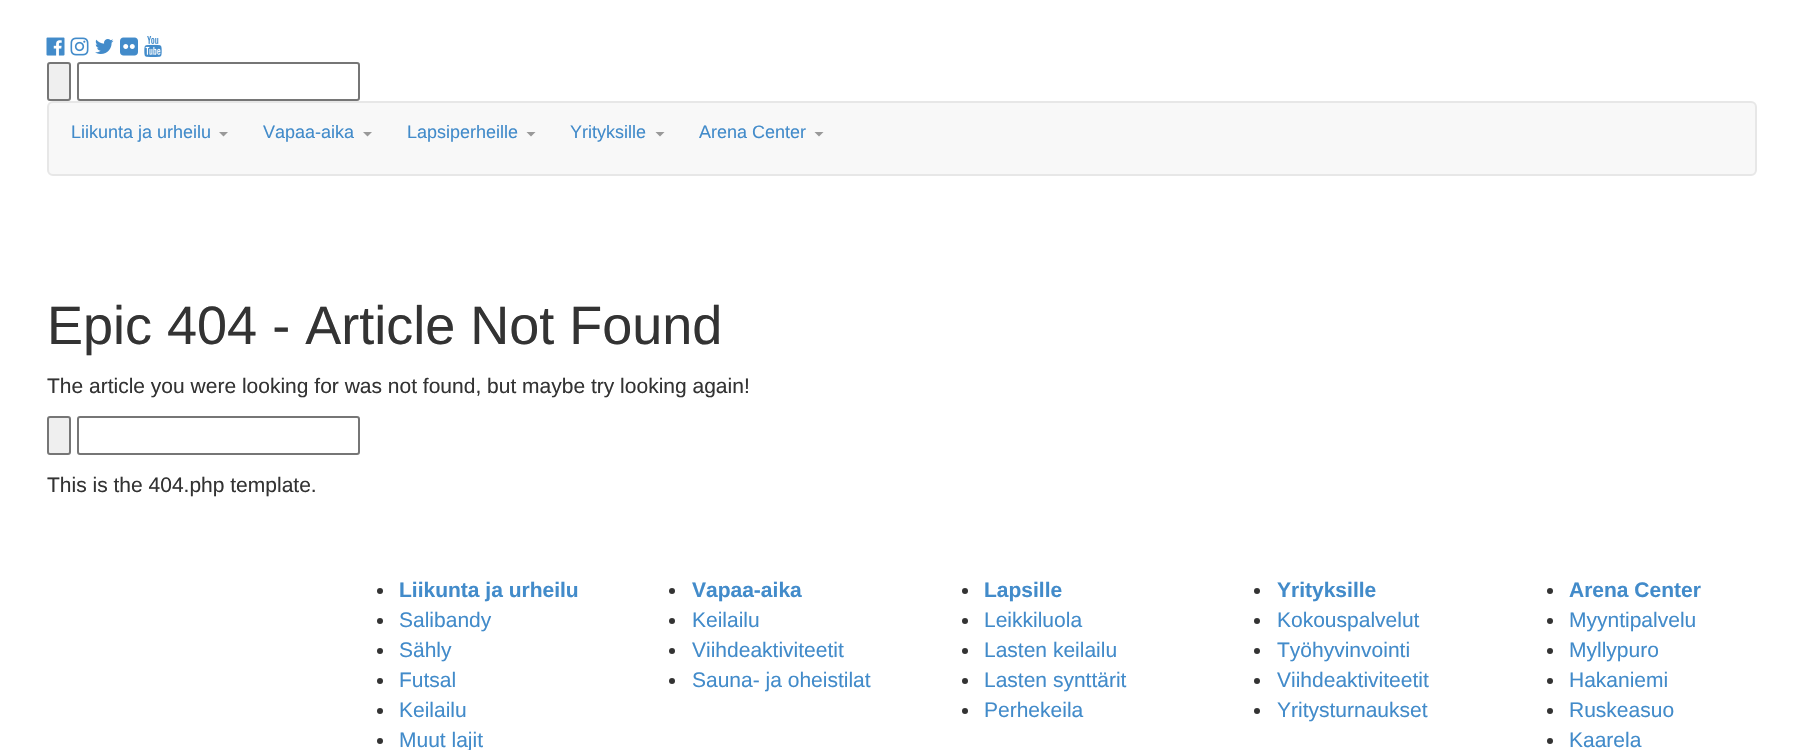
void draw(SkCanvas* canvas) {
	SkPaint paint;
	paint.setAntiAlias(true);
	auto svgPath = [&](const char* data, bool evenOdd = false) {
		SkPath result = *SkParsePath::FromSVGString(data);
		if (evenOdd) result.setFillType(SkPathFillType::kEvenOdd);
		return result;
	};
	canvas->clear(0xffffffff);
	canvas->drawImageRect(SkImages::DeferredFromEncodedData(SkData::MakeFromFileName("img1.png")), SkRect::MakeXYWH(46, 37, 19, 19), SkSamplingOptions());
	canvas->drawImageRect(SkImages::DeferredFromEncodedData(SkData::MakeFromFileName("img2.png")), SkRect::MakeXYWH(70, 37, 19, 19), SkSamplingOptions());
	canvas->drawImageRect(SkImages::DeferredFromEncodedData(SkData::MakeFromFileName("img3.png")), SkRect::MakeXYWH(95, 39, 19, 15), SkSamplingOptions());
	canvas->drawImageRect(SkImages::DeferredFromEncodedData(SkData::MakeFromFileName("img4.png")), SkRect::MakeXYWH(120, 37, 18, 19), SkSamplingOptions());
	canvas->drawImageRect(SkImages::DeferredFromEncodedData(SkData::MakeFromFileName("img5.png")), SkRect::MakeXYWH(144, 36, 18, 21), SkSamplingOptions());
	paint.setColor(0xffefefef);
	canvas->drawRoundRect(SkRect::MakeXYWH(48, 63, 22, 37), 2, 2, paint);
	paint.setStroke(true);
	paint.setStrokeWidth(2);
	paint.setColor(0xff767676);
	canvas->drawRoundRect(SkRect::MakeXYWH(48, 63, 22, 37), 2, 2, paint);
	canvas->drawRoundRect(SkRect::MakeXYWH(78, 63, 281, 37), 2, 2, paint);
	paint.setStroke(false);
	paint.setColor(0xfff8f8f8);
	canvas->drawRoundRect(SkRect::MakeXYWH(48, 102, 1708, 73), 5, 5, paint);
	paint.setStroke(true);
	paint.setColor(0xffe7e7e7);
	canvas->drawRoundRect(SkRect::MakeXYWH(48, 102, 1708, 73), 5, 5, paint);
	SkFont f1(fontMgr->matchFamilyStyle("Liberation Sans", SkFontStyle::Normal()), 18);
	f1.setSubpixel(true);
	paint.setStroke(false);
	paint.setColor(0xff428bca);
	canvas->drawString("Liikunta ja urheilu", 71, 138, f1, paint);
	paint.setColor(0xff999999);
	canvas->drawPath(svgPath("M219 132H228L223.5 136.5Z"), paint);
	paint.setColor(0xff428bca);
	canvas->drawString("Vapaa-aika", 263, 138, f1, paint);
	paint.setColor(0xff999999);
	canvas->drawPath(svgPath("M363 132H372L367.5 136.5Z"), paint);
	paint.setColor(0xff428bca);
	canvas->drawString("Lapsiperheille", 407, 138, f1, paint);
	paint.setColor(0xff999999);
	canvas->drawPath(svgPath("M526.5 132H535.5L531 136.5Z"), paint);
	paint.setColor(0xff428bca);
	canvas->drawString("Yrityksille", 570, 138, f1, paint);
	paint.setColor(0xff999999);
	canvas->drawPath(svgPath("M655.5 132H664.5L660 136.5Z"), paint);
	paint.setColor(0xff428bca);
	canvas->drawString("Arena Center", 699, 138, f1, paint);
	paint.setColor(0xff999999);
	canvas->drawPath(svgPath("M814.5 132H823.5L819 136.5Z"), paint);
	SkFont f2(fontMgr->matchFamilyStyle("Liberation Sans", SkFontStyle::Normal()), 54);
	f2.setSubpixel(true);
	paint.setColor(0xff333333);
	canvas->drawString("Epic 404 - Article Not Found", 47, 344, f2, paint);
	SkFont f3(fontMgr->matchFamilyStyle("Liberation Sans", SkFontStyle::Normal()), 21);
	f3.setSubpixel(true);
	canvas->drawString("The article you were looking for was not found, but maybe try looking again!", 47, 393, f3, paint);
	paint.setColor(0xffefefef);
	canvas->drawRoundRect(SkRect::MakeXYWH(48, 417, 22, 37), 2, 2, paint);
	paint.setStroke(true);
	paint.setColor(0xff767676);
	canvas->drawRoundRect(SkRect::MakeXYWH(48, 417, 22, 37), 2, 2, paint);
	canvas->drawRoundRect(SkRect::MakeXYWH(78, 417, 281, 37), 2, 2, paint);
	paint.setStroke(false);
	paint.setColor(0xff333333);
	canvas->drawString("This is the 404.php template.", 47, 492, f3, paint);
	canvas->drawCircle(380, 591, 3, paint);
	SkFont f4(fontMgr->matchFamilyStyle("Liberation Sans", SkFontStyle::Bold()), 21);
	f4.setSubpixel(true);
	paint.setColor(0xff428bca);
	canvas->drawString("Liikunta ja urheilu", 399, 597, f4, paint);
	paint.setColor(0xff333333);
	canvas->drawCircle(380, 621, 3, paint);
	paint.setColor(0xff428bca);
	canvas->drawString("Salibandy", 399, 627, f3, paint);
	paint.setColor(0xff333333);
	canvas->drawCircle(380, 651, 3, paint);
	paint.setColor(0xff428bca);
	canvas->drawString("Sähly", 399, 657, f3, paint);
	paint.setColor(0xff333333);
	canvas->drawCircle(380, 681, 3, paint);
	paint.setColor(0xff428bca);
	canvas->drawString("Futsal", 399, 687, f3, paint);
	paint.setColor(0xff333333);
	canvas->drawCircle(380, 711, 3, paint);
	paint.setColor(0xff428bca);
	canvas->drawString("Keilailu", 399, 717, f3, paint);
	paint.setColor(0xff333333);
	canvas->drawCircle(380, 741, 3, paint);
	paint.setColor(0xff428bca);
	canvas->drawString("Muut lajit", 399, 747, f3, paint);
	paint.setColor(0xff333333);
	canvas->drawCircle(672, 591, 3, paint);
	paint.setColor(0xff428bca);
	canvas->drawString("Vapaa-aika", 692, 597, f4, paint);
	paint.setColor(0xff333333);
	canvas->drawCircle(672, 621, 3, paint);
	paint.setColor(0xff428bca);
	canvas->drawString("Keilailu", 692, 627, f3, paint);
	paint.setColor(0xff333333);
	canvas->drawCircle(672, 651, 3, paint);
	paint.setColor(0xff428bca);
	canvas->drawString("Viihdeaktiviteetit", 692, 657, f3, paint);
	paint.setColor(0xff333333);
	canvas->drawCircle(672, 681, 3, paint);
	paint.setColor(0xff428bca);
	canvas->drawString("Sauna- ja oheistilat", 692, 687, f3, paint);
	paint.setColor(0xff333333);
	canvas->drawCircle(965, 591, 3, paint);
	paint.setColor(0xff428bca);
	canvas->drawString("Lapsille", 984, 597, f4, paint);
	paint.setColor(0xff333333);
	canvas->drawCircle(965, 621, 3, paint);
	paint.setColor(0xff428bca);
	canvas->drawString("Leikkiluola", 984, 627, f3, paint);
	paint.setColor(0xff333333);
	canvas->drawCircle(965, 651, 3, paint);
	paint.setColor(0xff428bca);
	canvas->drawString("Lasten keilailu", 984, 657, f3, paint);
	paint.setColor(0xff333333);
	canvas->drawCircle(965, 681, 3, paint);
	paint.setColor(0xff428bca);
	canvas->drawString("Lasten synttärit", 984, 687, f3, paint);
	paint.setColor(0xff333333);
	canvas->drawCircle(965, 711, 3, paint);
	paint.setColor(0xff428bca);
	canvas->drawString("Perhekeila", 984, 717, f3, paint);
	paint.setColor(0xff333333);
	canvas->drawCircle(1257, 591, 3, paint);
	paint.setColor(0xff428bca);
	canvas->drawString("Yrityksille", 1277, 597, f4, paint);
	paint.setColor(0xff333333);
	canvas->drawCircle(1257, 621, 3, paint);
	paint.setColor(0xff428bca);
	canvas->drawString("Kokouspalvelut", 1277, 627, f3, paint);
	paint.setColor(0xff333333);
	canvas->drawCircle(1257, 651, 3, paint);
	paint.setColor(0xff428bca);
	canvas->drawString("Työhyvinvointi", 1277, 657, f3, paint);
	paint.setColor(0xff333333);
	canvas->drawCircle(1257, 681, 3, paint);
	paint.setColor(0xff428bca);
	canvas->drawString("Viihdeaktiviteetit", 1277, 687, f3, paint);
	paint.setColor(0xff333333);
	canvas->drawCircle(1257, 711, 3, paint);
	paint.setColor(0xff428bca);
	canvas->drawString("Yritysturnaukset", 1277, 717, f3, paint);
	paint.setColor(0xff333333);
	canvas->drawCircle(1550, 591, 3, paint);
	paint.setColor(0xff428bca);
	canvas->drawString("Arena Center", 1569, 597, f4, paint);
	paint.setColor(0xff333333);
	canvas->drawCircle(1550, 621, 3, paint);
	paint.setColor(0xff428bca);
	canvas->drawString("Myyntipalvelu", 1569, 627, f3, paint);
	paint.setColor(0xff333333);
	canvas->drawCircle(1550, 651, 3, paint);
	paint.setColor(0xff428bca);
	canvas->drawString("Myllypuro", 1569, 657, f3, paint);
	paint.setColor(0xff333333);
	canvas->drawCircle(1550, 681, 3, paint);
	paint.setColor(0xff428bca);
	canvas->drawString("Hakaniemi", 1569, 687, f3, paint);
	paint.setColor(0xff333333);
	canvas->drawCircle(1550, 711, 3, paint);
	paint.setColor(0xff428bca);
	canvas->drawString("Ruskeasuo", 1569, 717, f3, paint);
	paint.setColor(0xff333333);
	canvas->drawCircle(1550, 741, 3, paint);
	paint.setColor(0xff428bca);
	canvas->drawString("Kaarela", 1569, 747, f3, paint);
}
